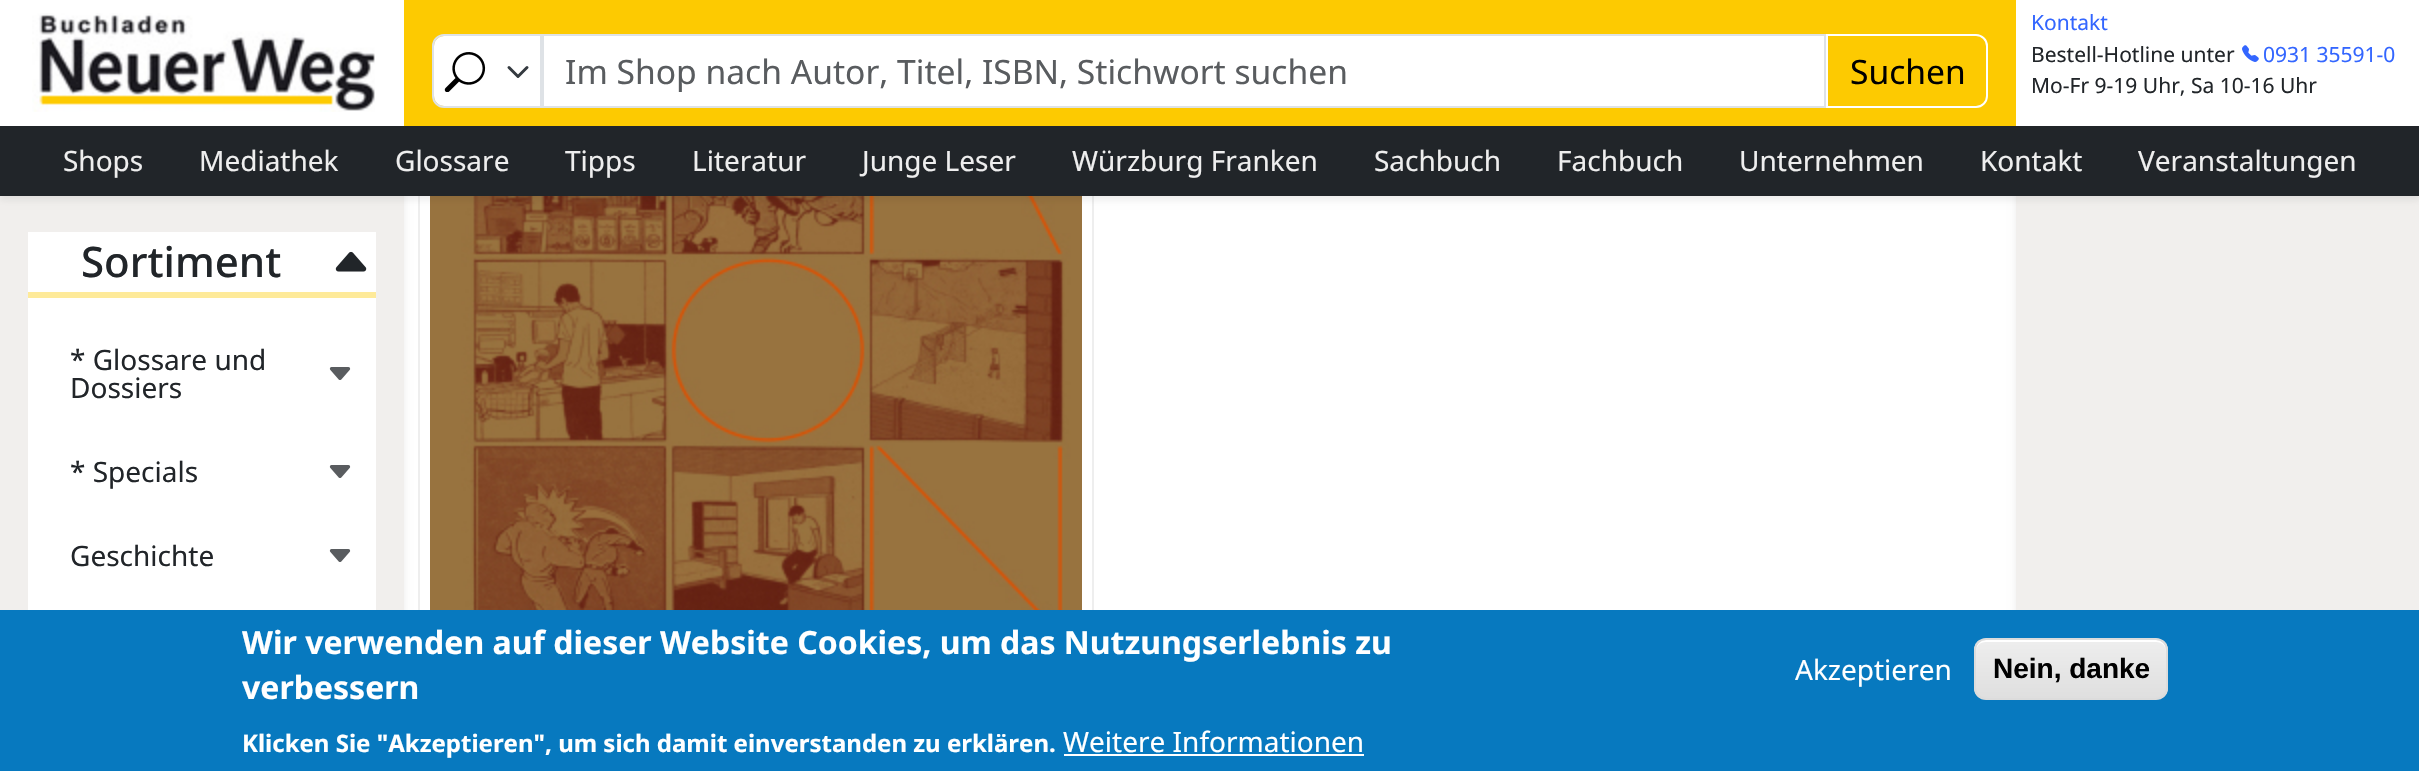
void draw(SkCanvas* canvas) {
	SkPaint paint;
	paint.setAntiAlias(true);
	auto svgPath = [&](const char* data, bool evenOdd = false) {
		SkPath result = *SkParsePath::FromSVGString(data);
		if (evenOdd) result.setFillType(SkPathFillType::kEvenOdd);
		return result;
	};
	canvas->clear(0xffffffff);
	paint.setStroke(true);
	paint.setStrokeWidth(2);
	paint.setColor(0xffeeeeee);
	canvas->drawRect(SkRect::MakeXYWH(419, -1, 674, 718), paint);
	canvas->drawImageRect(SkImages::DeferredFromEncodedData(SkData::MakeFromFileName("img1.png")), SkRect::MakeXYWH(430, 196, 652, 414), SkSamplingOptions());
	paint.setStroke(false);
	paint.setColor(0x12000000);
	paint.setMaskFilter(SkMaskFilter::MakeBlur(kNormal_SkBlurStyle, 3.5));
	canvas->drawRect(SkRect::MakeXYWH(2016, -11, 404, 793), paint);
	paint.setMaskFilter(nullptr);
	paint.setColor(0xfff1efed);
	canvas->drawRect(SkRect::MakeXYWH(2016, 196, 403, 414), paint);
	paint.setColor(0x12000000);
	paint.setMaskFilter(SkMaskFilter::MakeBlur(kNormal_SkBlurStyle, 3.5));
	canvas->drawRect(SkRect::MakeXYWH(0, 4, 404, 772), paint);
	paint.setMaskFilter(nullptr);
	paint.setColor(0xfff1efed);
	canvas->drawRect(SkRect::MakeXYWH(0, 196, 404, 414), paint);
	paint.setColor(0x12000000);
	paint.setMaskFilter(SkMaskFilter::MakeBlur(kNormal_SkBlurStyle, 3.5));
	canvas->drawRect(SkRect::MakeXYWH(0, 4, 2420, 196), paint);
	paint.setMaskFilter(nullptr);
	paint.setColor(0xfffdca01);
	canvas->drawRect(SkRect::MakeXYWH(404, 0, 1612, 126), paint);
	paint.setColor(0xffffffff);
	canvas->drawRect(SkRect::MakeXYWH(0, 0, 404, 126), paint);
	canvas->drawImageRect(SkImages::DeferredFromEncodedData(SkData::MakeFromFileName("img2.png")), SkRect::MakeXYWH(32, 13, 343, 99), SkSamplingOptions());
	canvas->drawPath(svgPath("M444 36H540V106H444C438.5 106 434 101.5 434 96V46C434 40.5 438.5 36 444 36Z"), paint);
	paint.setStroke(true);
	paint.setStrokeWidth(3);
	paint.setStrokeCap(SkPaint::kRound_Cap);
	paint.setStrokeJoin(SkPaint::kRound_Join);
	paint.setColor(0xff343a40);
	canvas->drawPath(svgPath("M509 67.5L518 76.5L527 67.5"), paint);
	paint.setStrokeWidth(2);
	paint.setStrokeCap(SkPaint::kButt_Cap);
	paint.setStrokeJoin(SkPaint::kMiter_Join);
	paint.setColor(0xffdee2e6);
	canvas->drawPath(svgPath("M444 35H541V107H444C438 107 433 102 433 96V46C433 40 438 35 444 35Z"), paint);
	canvas->drawImageRect(SkImages::DeferredFromEncodedData(SkData::MakeFromFileName("img3.png")), SkRect::MakeXYWH(444, 52, 42, 40), SkSamplingOptions());
	paint.setStroke(false);
	paint.setColor(0xffffffff);
	canvas->drawRect(SkRect::MakeXYWH(543, 35, 1282, 72), paint);
	paint.setStroke(true);
	paint.setColor(0xffdee2e6);
	canvas->drawRect(SkRect::MakeXYWH(543, 35, 1282, 72), paint);
	SkFont f1(fontMgr->matchFamilyStyle("Noto Sans", SkFontStyle::Normal()), 33.6);
	f1.setSubpixel(true);
	paint.setStroke(false);
	paint.setColor(0xff595c5f);
	canvas->drawString("Im Shop nach Autor, Titel, ISBN, Stichwort suchen", 565, 84, f1, paint);
	paint.setStroke(true);
	paint.setColor(0xffffffff);
	canvas->drawPath(svgPath("M1827 35H1976C1982 35 1987 40 1987 46V96C1987 102 1982 107 1976 107H1827Z"), paint);
	paint.setStroke(false);
	paint.setColor(0xff000000);
	canvas->drawString("Suchen", 1850, 84, f1, paint);
	paint.setColor(0xffffffff);
	canvas->drawRect(SkRect::MakeXYWH(2016, 0, 403, 126), paint);
	SkFont f2(fontMgr->matchFamilyStyle("Noto Sans", SkFontStyle::Normal()), 21);
	f2.setSubpixel(true);
	paint.setColor(0xff3366ff);
	canvas->drawString("Kontakt", 2031, 30, f2, paint);
	paint.setColor(0xff212529);
	canvas->drawString("Bestell-Hotline unter", 2031, 62, f2, paint);
	canvas->drawImageRect(SkImages::DeferredFromEncodedData(SkData::MakeFromFileName("img4.png")), SkRect::MakeXYWH(2242, 45, 17, 17), SkSamplingOptions());
	paint.setColor(0xff3366ff);
	canvas->drawString("0931 35591-0", 2263, 62, f2, paint);
	paint.setColor(0xff212529);
	canvas->drawString("Mo-Fr 9-19 Uhr, Sa 10-16 Uhr", 2031, 93, f2, paint);
	canvas->drawRect(SkRect::MakeXYWH(0, 126, 2419, 70), paint);
	SkFont f3(fontMgr->matchFamilyStyle("Noto Sans", SkFontStyle::Normal()), 28);
	f3.setSubpixel(true);
	paint.setColor(0xffeeeeee);
	canvas->drawString("Shops", 63, 171, f3, paint);
	canvas->drawString("Mediathek", 199, 171, f3, paint);
	canvas->drawString("Glossare", 395, 171, f3, paint);
	canvas->drawString("Tipps", 565, 171, f3, paint);
	canvas->drawString("Literatur", 692, 171, f3, paint);
	canvas->drawString("Junge Leser", 862, 171, f3, paint);
	canvas->drawString("Würzburg Franken", 1072, 171, f3, paint);
	canvas->drawString("Sachbuch", 1374, 171, f3, paint);
	canvas->drawString("Fachbuch", 1557, 171, f3, paint);
	canvas->drawString("Unternehmen", 1739, 171, f3, paint);
	canvas->drawString("Kontakt", 1980, 171, f3, paint);
	canvas->drawString("Veranstaltungen", 2138, 171, f3, paint);
	paint.setColor(0xffffffff);
	canvas->drawRect(SkRect::MakeXYWH(28, 232, 348, 378), paint);
	paint.setColor(0xfffeea99);
	canvas->drawRect(SkRect::MakeXYWH(28, 292, 348, 6), paint);
	SkFont f4(fontMgr->matchFamilyStyle("Noto Sans", SkFontStyle(500, SkFontStyle::kNormal_Width, SkFontStyle::kUpright_Slant)), 42);
	f4.setSubpixel(true);
	paint.setColor(0xff212529);
	canvas->drawString("Sortiment", 81, 277, f4, paint);
	canvas->drawImageRect(SkImages::DeferredFromEncodedData(SkData::MakeFromFileName("img5.png")), SkRect::MakeXYWH(335, 251, 32, 21), SkSamplingOptions());
	canvas->drawString("* Glossare und", 70, 370, f3, paint);
	canvas->drawImageRect(SkImages::DeferredFromEncodedData(SkData::MakeFromFileName("img6.png")), SkRect::MakeXYWH(329, 367, 22, 13), SkSamplingOptions());
	canvas->drawString("Dossiers", 70, 398, f3, paint);
	canvas->drawString("* Specials", 70, 482, f3, paint);
	canvas->drawImageRect(SkImages::DeferredFromEncodedData(SkData::MakeFromFileName("img6.png")), SkRect::MakeXYWH(329, 465, 22, 13), SkSamplingOptions());
	canvas->drawString("Geschichte", 70, 566, f3, paint);
	canvas->drawImageRect(SkImages::DeferredFromEncodedData(SkData::MakeFromFileName("img6.png")), SkRect::MakeXYWH(329, 549, 22, 13), SkSamplingOptions());
	paint.setColor(0xff0779bf);
	canvas->drawRect(SkRect::MakeXYWH(0, 610, 2419, 161), paint);
	SkFont f5(fontMgr->matchFamilyStyle("Noto Sans", SkFontStyle::Bold()), 32);
	f5.setSubpixel(true);
	paint.setColor(0xffffffff);
	canvas->drawString("Wir verwenden auf dieser Website Cookies, um das Nutzungserlebnis zu", 242, 654, f5, paint);
	canvas->drawString("verbessern", 242, 699, f5, paint);
	SkFont f6(fontMgr->matchFamilyStyle("Noto Sans", SkFontStyle::Bold()), 24);
	f6.setSubpixel(true);
	canvas->drawString("Klicken Sie \"Akzeptieren\", um sich damit einverstanden zu erklären.", 242, 752, f6, paint);
	canvas->drawString("Weitere Informationen", 1063, 752, f3, paint);
	canvas->drawRect(SkRect::MakeXYWH(1064, 754, 300, 2), paint);
	canvas->drawString("Akzeptieren", 1795, 680, f3, paint);
	canvas->save();
	canvas->clipPath(svgPath("M1986 638H2156C2162.5 638 2168 643.5 2168 650V688C2168 694.5 2162.5 700 2156 700H1986C1979.5 700 1974 694.5 1974 688V650C1974 643.5 1979.5 638 1986 638Z"), true);
	{
		const SkColor colors[] = {0xffededed, 0xffdfdfdf};
		const float stops[] = {0.05, 1};
		const SkPoint ends[] = {{2071, 640}, {2071, 698}};
		paint.setShader(SkGradientShader::MakeLinear(ends, colors, stops, 2, SkTileMode::kClamp));
		paint.setAlpha(255);
	}
	canvas->drawRect(SkRect::MakeXYWH(1974, 640, 194, 58), paint);
	canvas->restore();
	paint.setShader(nullptr);
	paint.setColor(0xffffffff);
	canvas->drawPath(svgPath("M1986 642H2156C2162 642 2166 646 2166 652V650C2166 644 2162 640 2156 640H1986C1980 640 1976 644 1976 650V652C1976 646 1980 642 1986 642Z"), paint);
	paint.setStroke(true);
	paint.setColor(0xffdcdcdc);
	canvas->drawRoundRect(SkRect::MakeXYWH(1975, 639, 192, 60), 11, 11, paint);
	SkFont f7(fontMgr->matchFamilyStyle("Liberation Sans", SkFontStyle::Bold()), 28);
	f7.setSubpixel(true);
	paint.setStroke(false);
	paint.setColor(0xff000000);
	canvas->drawString("Nein, danke", 1993, 678, f7, paint);
}
